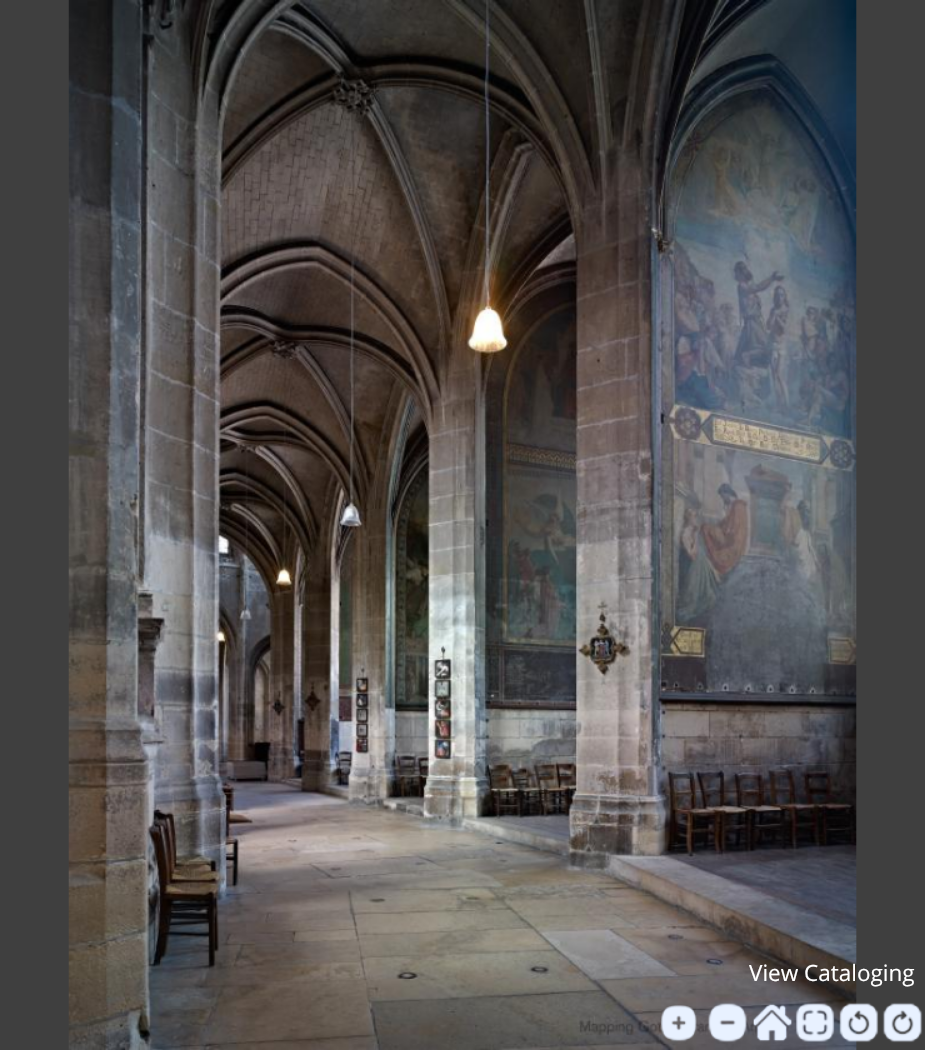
void draw(SkCanvas* canvas) {
	SkPaint paint;
	paint.setAntiAlias(true);
	canvas->clear(0xff3f3f3f);
	canvas->drawImageRect(SkImages::DeferredFromEncodedData(SkData::MakeFromFileName("img1.png")), SkRect::MakeXYWH(68, 0, 789, 1050), SkSamplingOptions());
	canvas->drawImageRect(SkImages::DeferredFromEncodedData(SkData::MakeFromFileName("img2.png")), SkRect::MakeXYWH(661, 1005, 36, 37), SkSamplingOptions());
	canvas->drawImageRect(SkImages::DeferredFromEncodedData(SkData::MakeFromFileName("img3.png")), SkRect::MakeXYWH(661, 1005, 36, 36), SkSamplingOptions());
	canvas->drawImageRect(SkImages::DeferredFromEncodedData(SkData::MakeFromFileName("img4.png")), SkRect::MakeXYWH(707, 1002, 41, 41), SkSamplingOptions());
	canvas->drawImageRect(SkImages::DeferredFromEncodedData(SkData::MakeFromFileName("img5.png")), SkRect::MakeXYWH(708, 1003, 39, 39), SkSamplingOptions());
	canvas->drawImageRect(SkImages::DeferredFromEncodedData(SkData::MakeFromFileName("img6.png")), SkRect::MakeXYWH(753, 1003, 39, 39), SkSamplingOptions());
	canvas->drawImageRect(SkImages::DeferredFromEncodedData(SkData::MakeFromFileName("img7.png")), SkRect::MakeXYWH(753, 1004, 39, 37), SkSamplingOptions());
	canvas->drawImageRect(SkImages::DeferredFromEncodedData(SkData::MakeFromFileName("img8.png")), SkRect::MakeXYWH(795, 1002, 40, 40), SkSamplingOptions());
	canvas->drawImageRect(SkImages::DeferredFromEncodedData(SkData::MakeFromFileName("img9.png")), SkRect::MakeXYWH(796, 1003, 38, 39), SkSamplingOptions());
	canvas->drawImageRect(SkImages::DeferredFromEncodedData(SkData::MakeFromFileName("img10.png")), SkRect::MakeXYWH(839, 1002, 40, 41), SkSamplingOptions());
	canvas->drawImageRect(SkImages::DeferredFromEncodedData(SkData::MakeFromFileName("img11.png")), SkRect::MakeXYWH(839, 1003, 39, 39), SkSamplingOptions());
	canvas->drawImageRect(SkImages::DeferredFromEncodedData(SkData::MakeFromFileName("img12.png")), SkRect::MakeXYWH(882, 1002, 41, 41), SkSamplingOptions());
	canvas->drawImageRect(SkImages::DeferredFromEncodedData(SkData::MakeFromFileName("img13.png")), SkRect::MakeXYWH(883, 1003, 39, 39), SkSamplingOptions());
	SkFont f1(fontMgr->matchFamilyStyle("Open Sans", SkFontStyle::Normal()), 22.5);
	f1.setSubpixel(true);
	paint.setColor(0xffffffff);
	canvas->drawString("View Cataloging", 749, 981, f1, paint);
}
